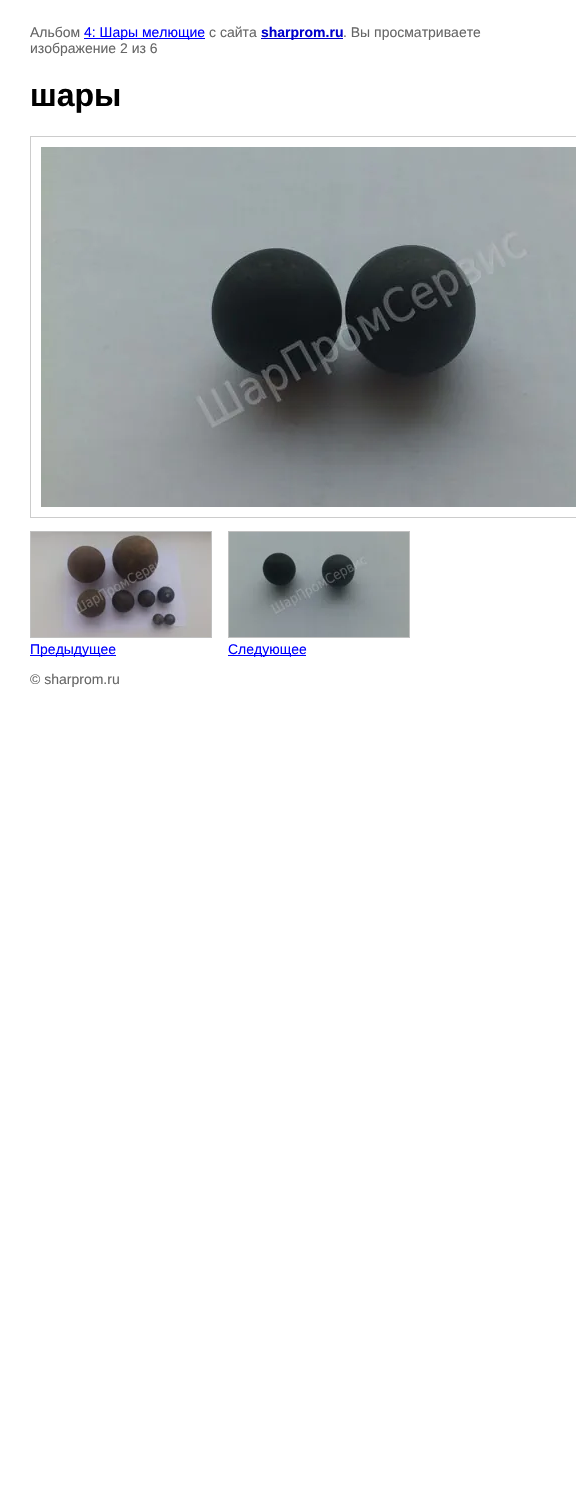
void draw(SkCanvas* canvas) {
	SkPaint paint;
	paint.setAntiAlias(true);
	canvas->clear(0xffffffff);
	SkFont f1(fontMgr->matchFamilyStyle("Liberation Sans", SkFontStyle::Normal()), 14);
	f1.setSubpixel(true);
	paint.setColor(0xff666666);
	canvas->drawString("Альбом", 30, 37, f1, paint);
	paint.setColor(0xff0000ff);
	canvas->drawRect(SkRect::MakeXYWH(84, 38, 121, 1), paint);
	canvas->drawString("4: Шары мелющие", 84, 37, f1, paint);
	paint.setColor(0xff666666);
	canvas->drawString("с сайта", 209, 37, f1, paint);
	paint.setColor(0xff0000cc);
	canvas->drawRect(SkRect::MakeXYWH(261, 38, 82, 1), paint);
	SkFont f2(fontMgr->matchFamilyStyle("Liberation Sans", SkFontStyle::Bold()), 14);
	f2.setSubpixel(true);
	canvas->drawString("sharprom.ru", 261, 37, f2, paint);
	paint.setColor(0xff666666);
	canvas->drawString(". Вы просматриваете", 343, 37, f1, paint);
	canvas->drawString("изображение 2 из 6", 30, 53, f1, paint);
	SkFont f3(fontMgr->matchFamilyStyle("Liberation Sans", SkFontStyle::Bold()), 32);
	f3.setSubpixel(true);
	paint.setColor(0xff000000);
	canvas->drawString("шары", 30, 106, f3, paint);
	paint.setStroke(true);
	paint.setStrokeWidth(1);
	paint.setColor(0xffcccccc);
	canvas->drawRect(SkRect::MakeXYWH(30.5, 136.5, 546, 381), paint);
	canvas->drawImageRect(SkImages::DeferredFromEncodedData(SkData::MakeFromFileName("img1.png")), SkRect::MakeXYWH(41, 147, 535, 360), SkSamplingOptions());
	paint.setColor(0xffc0c0c0);
	canvas->drawRect(SkRect::MakeXYWH(30.5, 531.5, 181, 106), paint);
	canvas->drawImageRect(SkImages::DeferredFromEncodedData(SkData::MakeFromFileName("img2.png")), SkRect::MakeXYWH(31, 532, 180, 105), SkSamplingOptions());
	paint.setStroke(false);
	paint.setColor(0xff0000ff);
	canvas->drawRect(SkRect::MakeXYWH(30, 655, 86, 1), paint);
	canvas->drawString("Предыдущее", 30, 654, f1, paint);
	paint.setStroke(true);
	paint.setColor(0xffc0c0c0);
	canvas->drawRect(SkRect::MakeXYWH(228.5, 531.5, 181, 106), paint);
	canvas->drawImageRect(SkImages::DeferredFromEncodedData(SkData::MakeFromFileName("img3.png")), SkRect::MakeXYWH(229, 532, 180, 105), SkSamplingOptions());
	paint.setStroke(false);
	paint.setColor(0xff0000ff);
	canvas->drawRect(SkRect::MakeXYWH(228, 655, 78, 1), paint);
	canvas->drawString("Следующее", 228, 654, f1, paint);
	paint.setColor(0xff666666);
	canvas->drawString("© sharprom.ru", 30, 684, f1, paint);
}
